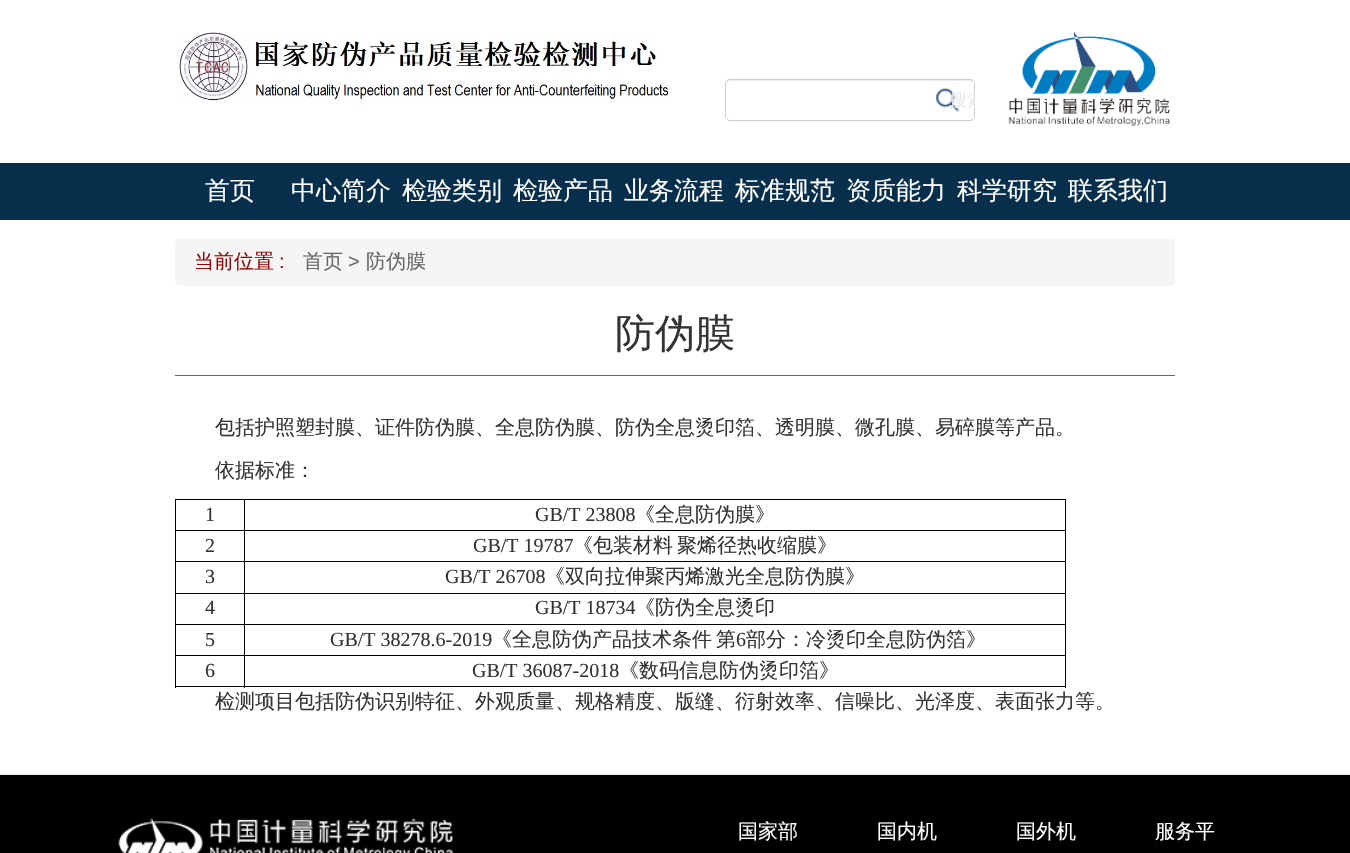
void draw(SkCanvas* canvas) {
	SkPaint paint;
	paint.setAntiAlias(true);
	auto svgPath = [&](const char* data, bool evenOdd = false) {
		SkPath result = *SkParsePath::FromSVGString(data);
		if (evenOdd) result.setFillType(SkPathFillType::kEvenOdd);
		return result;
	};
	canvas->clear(0xffffffff);
	canvas->drawImageRect(SkImages::DeferredFromEncodedData(SkData::MakeFromFileName("img1.png")), SkRect::MakeXYWH(178, 32, 492, 73), SkSamplingOptions());
	paint.setColor(0xffececec);
	canvas->drawPath(svgPath("M730 81H970C972 81 974 83 974 85V84C974 82 972 80 970 80H730C728 80 726 82 726 84V85C726 83 728 81 730 81Z"), paint);
	paint.setStroke(true);
	paint.setStrokeWidth(1);
	paint.setColor(0xffcccccc);
	canvas->drawRoundRect(SkRect::MakeXYWH(725.5, 79.5, 249, 41), 4.5, 4.5, paint);
	canvas->drawImageRect(SkImages::DeferredFromEncodedData(SkData::MakeFromFileName("img2.png")), SkRect::MakeXYWH(936, 88, 23, 24), SkSamplingOptions());
	canvas->save();
	canvas->clipRect(SkRect::MakeXYWH(725, 79, 250, 42));
	SkFont f1(fontMgr->matchFamilyStyle("WenQuanYi Zen Hei", SkFontStyle(500, SkFontStyle::kNormal_Width, SkFontStyle::kUpright_Slant)), 18);
	f1.setSubpixel(true);
	paint.setStroke(false);
	paint.setColor(0xffe7ebf0);
	canvas->drawString("搜索", 949, 106, f1, paint);
	canvas->restore();
	canvas->drawImageRect(SkImages::DeferredFromEncodedData(SkData::MakeFromFileName("img3.png")), SkRect::MakeXYWH(1008, 32, 162, 95), SkSamplingOptions());
	paint.setColor(0xff072e4b);
	canvas->drawRect(SkRect::MakeXYWH(0, 163, 1350, 57), paint);
	SkFont f2(fontMgr->matchFamilyStyle("WenQuanYi Zen Hei", SkFontStyle(500, SkFontStyle::kNormal_Width, SkFontStyle::kUpright_Slant)), 25);
	f2.setSubpixel(true);
	paint.setColor(0xffffffff);
	canvas->drawString("首页", 205, 199, f2, paint);
	canvas->drawString("中心简介", 291, 199, f2, paint);
	canvas->drawString("检验类别", 402, 199, f2, paint);
	canvas->drawString("检验产品", 513, 199, f2, paint);
	canvas->drawString("业务流程", 624, 199, f2, paint);
	canvas->drawString("标准规范", 735, 199, f2, paint);
	canvas->drawString("资质能力", 846, 199, f2, paint);
	canvas->drawString("科学研究", 957, 199, f2, paint);
	canvas->drawString("联系我们", 1068, 199, f2, paint);
	paint.setColor(0xfff5f5f5);
	canvas->drawRoundRect(SkRect::MakeXYWH(175, 239, 1000, 47), 5, 5, paint);
	SkFont f3(fontMgr->matchFamilyStyle("WenQuanYi Zen Hei", SkFontStyle(500, SkFontStyle::kNormal_Width, SkFontStyle::kUpright_Slant)), 20);
	f3.setSubpixel(true);
	paint.setColor(0xff940709);
	canvas->drawString("当前位置", 194, 268, f3, paint);
	SkFont f4(fontMgr->matchFamilyStyle("Liberation Sans", SkFontStyle::Normal()), 20);
	f4.setSubpixel(true);
	canvas->drawString(":", 279, 268, f4, paint);
	paint.setColor(0xff666666);
	canvas->drawString("首页", 303, 268, f3, paint);
	canvas->drawString(">", 348, 268, f4, paint);
	canvas->drawString("防伪膜", 366, 268, f3, paint);
	canvas->drawRect(SkRect::MakeXYWH(175, 375, 1000, 1), paint);
	SkFont f5(fontMgr->matchFamilyStyle("WenQuanYi Zen Hei", SkFontStyle(500, SkFontStyle::kNormal_Width, SkFontStyle::kUpright_Slant)), 40);
	f5.setSubpixel(true);
	paint.setColor(0xff333333);
	canvas->drawString("防伪膜", 615, 347, f5, paint);
	canvas->drawString("包括护照塑封膜、证件防伪膜、全息防伪膜、防伪全息烫印箔、透明膜、微孔膜、易碎膜等产品。", 215, 434, f3, paint);
	canvas->drawString("依据标准：", 215, 477, f3, paint);
	paint.setColor(0xff000000);
	canvas->drawRect(SkRect::MakeXYWH(175, 499, 891, 1), paint);
	canvas->drawRect(SkRect::MakeXYWH(1065, 499, 1, 189), paint);
	canvas->drawRect(SkRect::MakeXYWH(175, 686, 891, 1), paint);
	canvas->drawRect(SkRect::MakeXYWH(175, 499, 1, 189), paint);
	canvas->drawRect(SkRect::MakeXYWH(244, 655, 1, 33), paint);
	canvas->drawRect(SkRect::MakeXYWH(244, 655, 822, 1), paint);
	canvas->drawRect(SkRect::MakeXYWH(244, 624, 1, 32), paint);
	canvas->drawRect(SkRect::MakeXYWH(244, 624, 822, 1), paint);
	canvas->drawRect(SkRect::MakeXYWH(244, 593, 1, 32), paint);
	canvas->drawRect(SkRect::MakeXYWH(244, 593, 822, 1), paint);
	canvas->drawRect(SkRect::MakeXYWH(244, 561, 1, 33), paint);
	canvas->drawRect(SkRect::MakeXYWH(244, 561, 822, 1), paint);
	canvas->drawRect(SkRect::MakeXYWH(244, 530, 1, 33), paint);
	canvas->drawRect(SkRect::MakeXYWH(244, 530, 822, 1), paint);
	canvas->drawRect(SkRect::MakeXYWH(244, 499, 1, 32), paint);
	canvas->drawRect(SkRect::MakeXYWH(175, 530, 70, 1), paint);
	SkFont f6(fontMgr->matchFamilyStyle("Liberation Serif", SkFontStyle::Normal()), 20);
	f6.setSubpixel(true);
	paint.setColor(0xff333333);
	canvas->drawString("1", 205, 521, f6, paint);
	canvas->drawString("GB/T 23808", 535, 521, f6, paint);
	canvas->drawString("《全息防伪膜》", 635, 521, f3, paint);
	paint.setColor(0xff000000);
	canvas->drawRect(SkRect::MakeXYWH(175, 561, 70, 1), paint);
	paint.setColor(0xff333333);
	canvas->drawString("2", 205, 552, f6, paint);
	canvas->drawString("GB/T 19787", 473, 552, f6, paint);
	canvas->drawString("《包装材料", 573, 552, f3, paint);
	canvas->drawString("聚烯径热收缩膜》", 677, 552, f3, paint);
	paint.setColor(0xff000000);
	canvas->drawRect(SkRect::MakeXYWH(175, 593, 70, 1), paint);
	paint.setColor(0xff333333);
	canvas->drawString("3", 205, 583, f6, paint);
	canvas->drawString("GB/T 26708", 445, 583, f6, paint);
	canvas->drawString("《双向拉伸聚丙烯激光全息防伪膜》", 545, 583, f3, paint);
	paint.setColor(0xff000000);
	canvas->drawRect(SkRect::MakeXYWH(175, 624, 70, 1), paint);
	paint.setColor(0xff333333);
	canvas->drawString("4", 205, 614, f6, paint);
	canvas->drawString("GB/T 18734", 535, 614, f6, paint);
	canvas->drawString("《防伪全息烫印", 635, 614, f3, paint);
	paint.setColor(0xff000000);
	canvas->drawRect(SkRect::MakeXYWH(175, 655, 70, 1), paint);
	paint.setColor(0xff333333);
	canvas->drawString("5", 205, 646, f6, paint);
	canvas->drawString("GB/T 38278.6-2019", 330, 646, f6, paint);
	canvas->drawString("《全息防伪产品技术条件", 492, 646, f3, paint);
	canvas->drawString("第", 716, 646, f3, paint);
	canvas->drawString("6", 736, 646, f6, paint);
	canvas->drawString("部分：冷烫印全息防伪箔》", 746, 646, f3, paint);
	canvas->drawString("6", 205, 677, f6, paint);
	canvas->drawString("GB/T 36087-2018", 472, 677, f6, paint);
	canvas->drawString("《数码信息防伪烫印箔》", 619, 677, f3, paint);
	canvas->drawString("检测项目包括防伪识别特征、外观质量、规格精度、版缝、衍射效率、信噪比、光泽度、表面张力等。", 215, 708, f3, paint);
	paint.setColor(0xff000000);
	canvas->drawRect(SkRect::MakeXYWH(0, 775, 1350, 78), paint);
	paint.setColor(0xffe5e5e5);
	canvas->drawRect(SkRect::MakeXYWH(0, 774, 1350, 1), paint);
	canvas->drawImageRect(SkImages::DeferredFromEncodedData(SkData::MakeFromFileName("img4.png")), SkRect::MakeXYWH(118, 818, 335, 35), SkSamplingOptions());
	paint.setColor(0xffffffff);
	canvas->drawString("国家部", 738, 838, f3, paint);
	canvas->drawString("国内机", 877, 838, f3, paint);
	canvas->drawString("国外机", 1016, 838, f3, paint);
	canvas->drawString("服务平", 1155, 838, f3, paint);
}
